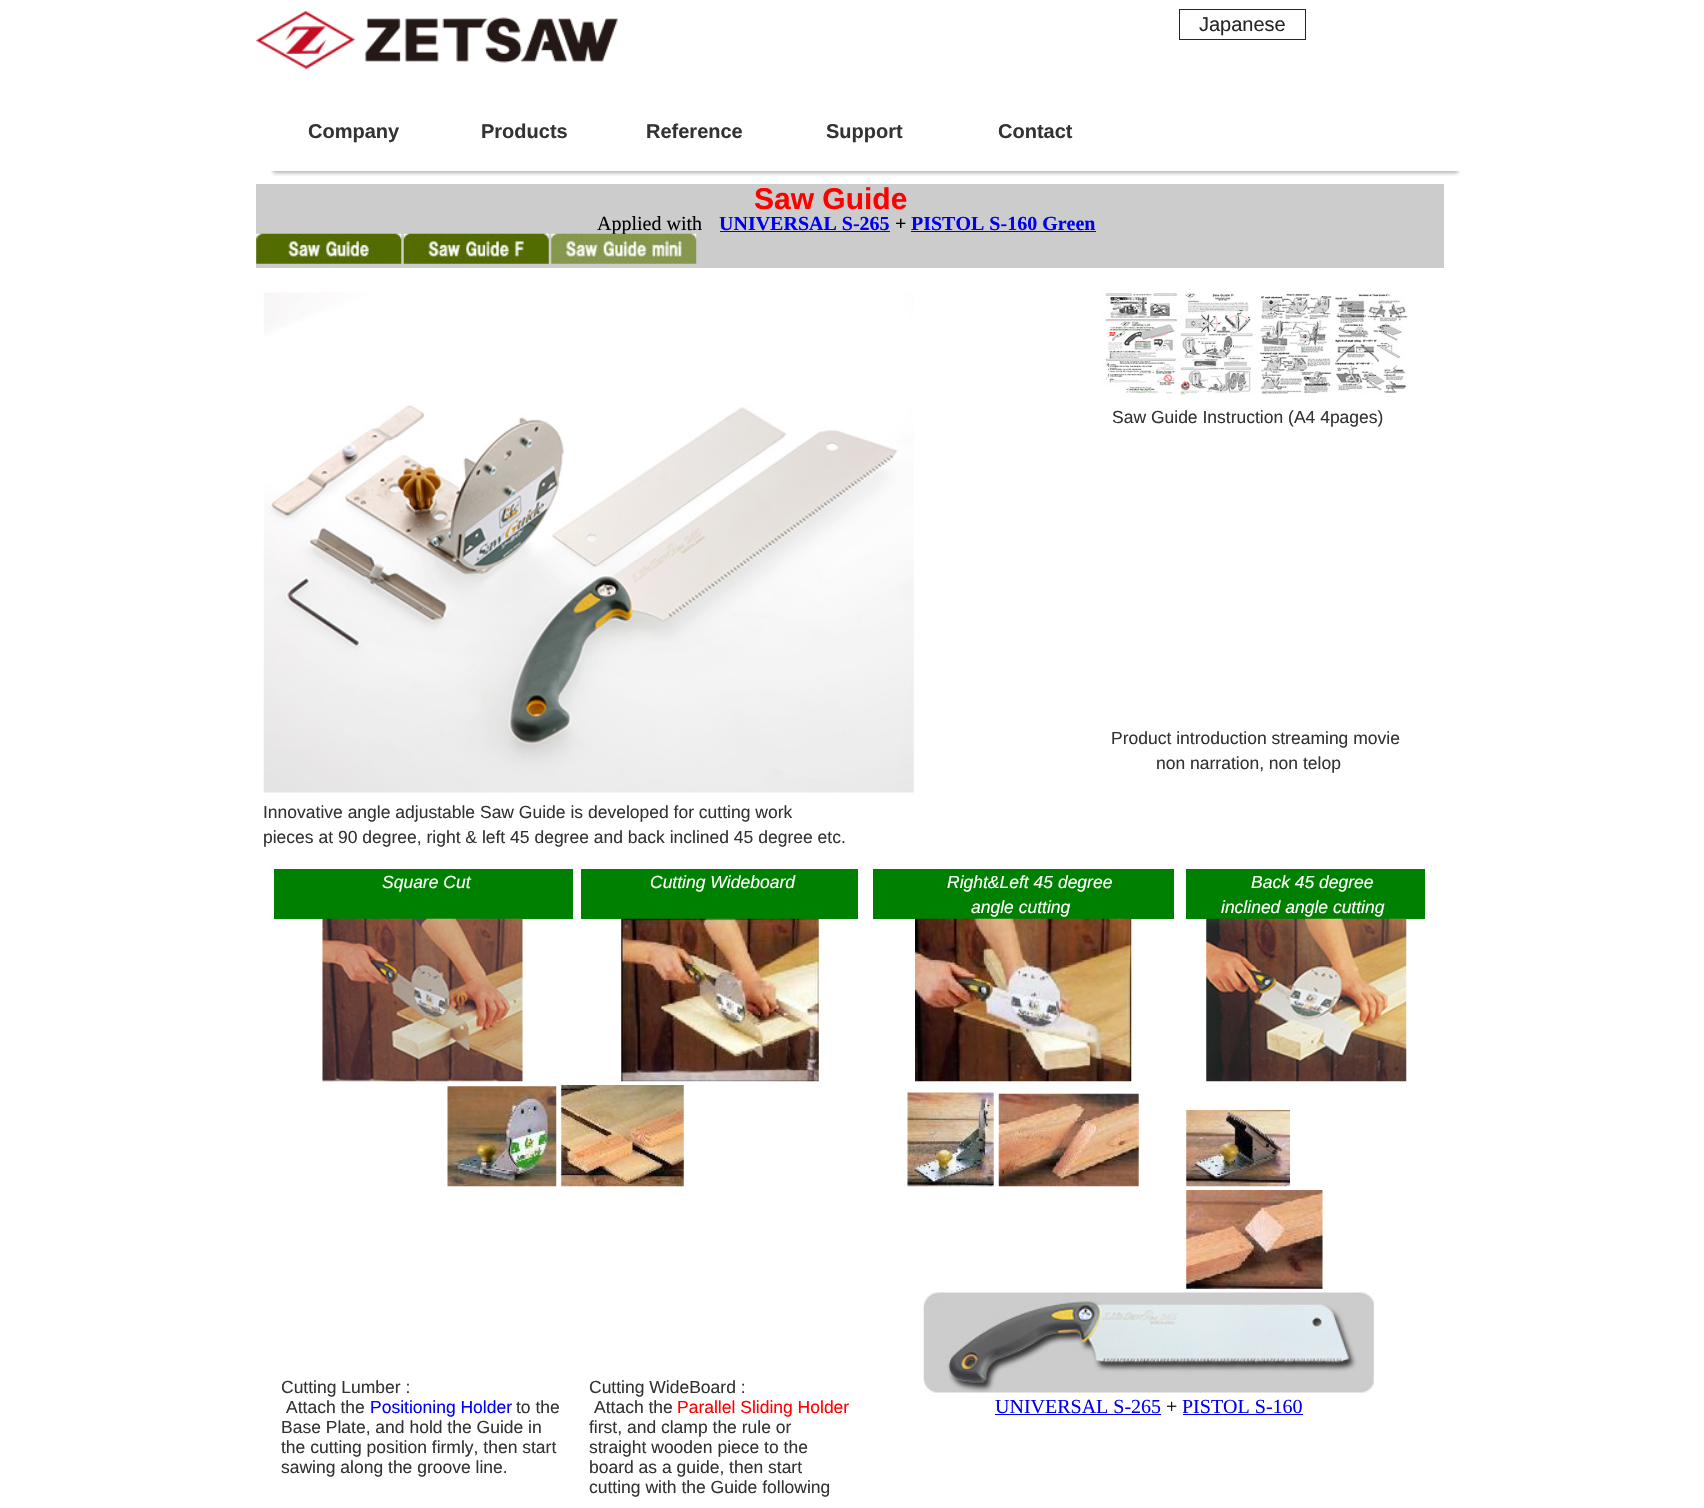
void draw(SkCanvas* canvas) {
	SkPaint paint;
	paint.setAntiAlias(true);
	canvas->clear(0xffffffff);
	canvas->drawImageRect(SkImages::DeferredFromEncodedData(SkData::MakeFromFileName("img1.png")), SkRect::MakeXYWH(256, 11, 362, 58), SkSamplingOptions());
	paint.setStroke(true);
	paint.setStrokeWidth(1);
	paint.setColor(0xff262626);
	canvas->drawRect(SkRect::MakeXYWH(1179.5, 9.5, 126, 30), paint);
	SkFont f1(fontMgr->matchFamilyStyle("Liberation Sans", SkFontStyle::Normal()), 20);
	f1.setSubpixel(true);
	paint.setStroke(false);
	canvas->drawString("Japanese", 1199, 31, f1, paint);
	canvas->save();
	canvas->clipRect(SkRect::MakeXYWH(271, 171, 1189, 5));
	paint.setColor(0x4d000000);
	paint.setMaskFilter(SkMaskFilter::MakeBlur(kNormal_SkBlurStyle, 2));
	canvas->drawRect(SkRect::MakeXYWH(273, 118, 1185, 55), paint);
	paint.setMaskFilter(nullptr);
	canvas->restore();
	SkFont f2(fontMgr->matchFamilyStyle("Liberation Sans", SkFontStyle::Bold()), 20);
	f2.setSubpixel(true);
	paint.setColor(0xff333333);
	canvas->drawString("Company", 308, 138, f2, paint);
	canvas->drawString("Products", 481, 138, f2, paint);
	canvas->drawString("Reference", 646, 138, f2, paint);
	canvas->drawString("Support", 826, 138, f2, paint);
	canvas->drawString("Contact", 998, 138, f2, paint);
	paint.setColor(0xffcccccc);
	canvas->drawRect(SkRect::MakeXYWH(256, 184, 1188, 84), paint);
	SkFont f3(fontMgr->matchFamilyStyle("Liberation Sans", SkFontStyle::Bold()), 30);
	f3.setSubpixel(true);
	paint.setColor(0xffff0000);
	canvas->drawString("Saw Guide", 754, 209, f3, paint);
	SkFont f4(fontMgr->matchFamilyStyle("Liberation Serif", SkFontStyle::Normal()), 20);
	f4.setSubpixel(true);
	paint.setColor(0xff000000);
	canvas->drawString("Applied with", 597, 230, f4, paint);
	SkFont f5(fontMgr->matchFamilyStyle("Liberation Serif", SkFontStyle::Bold()), 20);
	f5.setSubpixel(true);
	paint.setColor(0xff0000ee);
	canvas->drawString("UNIVERSAL S-265", 719, 230, f5, paint);
	canvas->drawRect(SkRect::MakeXYWH(720, 231, 170, 1), paint);
	paint.setColor(0xff000000);
	canvas->drawString("+", 895, 230, f5, paint);
	paint.setColor(0xff0000ee);
	canvas->drawString("PISTOL S-160 Green", 911, 230, f5, paint);
	canvas->drawRect(SkRect::MakeXYWH(911, 231, 185, 1), paint);
	canvas->drawImageRect(SkImages::DeferredFromEncodedData(SkData::MakeFromFileName("img2.png")), SkRect::MakeXYWH(256, 233, 146, 31), SkSamplingOptions());
	canvas->drawImageRect(SkImages::DeferredFromEncodedData(SkData::MakeFromFileName("img3.png")), SkRect::MakeXYWH(403, 233, 146, 31), SkSamplingOptions());
	canvas->drawImageRect(SkImages::DeferredFromEncodedData(SkData::MakeFromFileName("img4.png")), SkRect::MakeXYWH(551, 233, 146, 31), SkSamplingOptions());
	canvas->drawImageRect(SkImages::DeferredFromEncodedData(SkData::MakeFromFileName("img5.png")), SkRect::MakeXYWH(1102, 290, 307, 105), SkSamplingOptions());
	SkFont f6(fontMgr->matchFamilyStyle("Liberation Sans", SkFontStyle::Normal()), 17.5);
	f6.setSubpixel(true);
	paint.setColor(0xff333333);
	canvas->drawString("Saw Guide Instruction (A4 4pages)", 1112, 423, f6, paint);
	canvas->drawImageRect(SkImages::DeferredFromEncodedData(SkData::MakeFromFileName("img6.png")), SkRect::MakeXYWH(263, 292, 651, 501), SkSamplingOptions());
	canvas->drawString("Innovative angle adjustable Saw Guide is developed for cutting work", 263, 818, f6, paint);
	canvas->drawString("pieces at 90 degree, right & left 45 degree and back inclined 45 degree etc.", 263, 843, f6, paint);
	canvas->drawString("Product introduction streaming movie", 1111, 744, f6, paint);
	canvas->drawString("non narration, non telop", 1156, 769, f6, paint);
	paint.setColor(0xff008000);
	canvas->drawRect(SkRect::MakeXYWH(274, 869, 299, 50), paint);
	SkFont f7(fontMgr->matchFamilyStyle("Liberation Sans", SkFontStyle::Italic()), 17.5);
	f7.setSubpixel(true);
	paint.setColor(0xffffffff);
	canvas->drawString("Square Cut", 382, 888, f7, paint);
	paint.setColor(0xff008000);
	canvas->drawRect(SkRect::MakeXYWH(581, 869, 277, 50), paint);
	paint.setColor(0xffffffff);
	canvas->drawString("Cutting Wideboard", 650, 888, f7, paint);
	paint.setColor(0xff008000);
	canvas->drawRect(SkRect::MakeXYWH(873, 869, 301, 50), paint);
	paint.setColor(0xffffffff);
	canvas->drawString("Right&Left 45 degree", 947, 888, f7, paint);
	canvas->drawString("angle cutting", 971, 913, f7, paint);
	paint.setColor(0xff008000);
	canvas->drawRect(SkRect::MakeXYWH(1186, 869, 239, 50), paint);
	paint.setColor(0xffffffff);
	canvas->drawString("Back 45 degree", 1251, 888, f7, paint);
	canvas->drawString("inclined angle cutting", 1221, 913, f7, paint);
	canvas->drawImageRect(SkImages::DeferredFromEncodedData(SkData::MakeFromFileName("img7.png")), SkRect::MakeXYWH(322, 918, 201, 164), SkSamplingOptions());
	canvas->drawImageRect(SkImages::DeferredFromEncodedData(SkData::MakeFromFileName("img8.png")), SkRect::MakeXYWH(621, 918, 198, 164), SkSamplingOptions());
	canvas->drawImageRect(SkImages::DeferredFromEncodedData(SkData::MakeFromFileName("img9.png")), SkRect::MakeXYWH(915, 918, 217, 164), SkSamplingOptions());
	canvas->drawImageRect(SkImages::DeferredFromEncodedData(SkData::MakeFromFileName("img10.png")), SkRect::MakeXYWH(1206, 918, 201, 164), SkSamplingOptions());
	canvas->drawImageRect(SkImages::DeferredFromEncodedData(SkData::MakeFromFileName("img11.png")), SkRect::MakeXYWH(447, 1086, 110, 101), SkSamplingOptions());
	canvas->drawImageRect(SkImages::DeferredFromEncodedData(SkData::MakeFromFileName("img12.png")), SkRect::MakeXYWH(561, 1085, 123, 102), SkSamplingOptions());
	canvas->drawImageRect(SkImages::DeferredFromEncodedData(SkData::MakeFromFileName("img13.png")), SkRect::MakeXYWH(907, 1092, 87, 95), SkSamplingOptions());
	canvas->drawImageRect(SkImages::DeferredFromEncodedData(SkData::MakeFromFileName("img14.png")), SkRect::MakeXYWH(998, 1093, 141, 94), SkSamplingOptions());
	canvas->drawImageRect(SkImages::DeferredFromEncodedData(SkData::MakeFromFileName("img15.png")), SkRect::MakeXYWH(1186, 1110, 104, 77), SkSamplingOptions());
	canvas->drawImageRect(SkImages::DeferredFromEncodedData(SkData::MakeFromFileName("img16.png")), SkRect::MakeXYWH(1186, 1190, 137, 99), SkSamplingOptions());
	paint.setColor(0xff333333);
	canvas->drawString("Cutting Lumber :", 281, 1393, f6, paint);
	canvas->drawString("Attach the", 286, 1413, f6, paint);
	paint.setColor(0xff0000ff);
	canvas->drawString("Positioning Holder", 370, 1413, f6, paint);
	paint.setColor(0xff333333);
	canvas->drawString("to the", 516, 1413, f6, paint);
	canvas->drawString("Base Plate, and hold the Guide in", 281, 1433, f6, paint);
	canvas->drawString("the cutting position firmly, then start", 281, 1453, f6, paint);
	canvas->drawString("sawing along the groove line.", 281, 1473, f6, paint);
	canvas->drawString("Cutting WideBoard :", 589, 1393, f6, paint);
	canvas->drawString("Attach the", 594, 1413, f6, paint);
	paint.setColor(0xffff0000);
	canvas->drawString("Parallel Sliding Holder", 677, 1413, f6, paint);
	paint.setColor(0xff333333);
	canvas->drawString("first, and clamp the rule or", 589, 1433, f6, paint);
	canvas->drawString("straight wooden piece to the", 589, 1453, f6, paint);
	canvas->drawString("board as a guide, then start", 589, 1473, f6, paint);
	canvas->drawString("cutting with the Guide following", 589, 1493, f6, paint);
	canvas->drawImageRect(SkImages::DeferredFromEncodedData(SkData::MakeFromFileName("img17.png")), SkRect::MakeXYWH(923, 1292, 451, 101), SkSamplingOptions());
	paint.setColor(0xff0000ee);
	canvas->drawString("UNIVERSAL S-265", 995, 1413, f4, paint);
	canvas->drawRect(SkRect::MakeXYWH(995, 1414, 166, 1), paint);
	paint.setColor(0xff000000);
	canvas->drawString("+", 1166, 1413, f4, paint);
	paint.setColor(0xff0000ee);
	canvas->drawString("PISTOL S-160", 1182, 1413, f4, paint);
	canvas->drawRect(SkRect::MakeXYWH(1183, 1414, 120, 1), paint);
}
